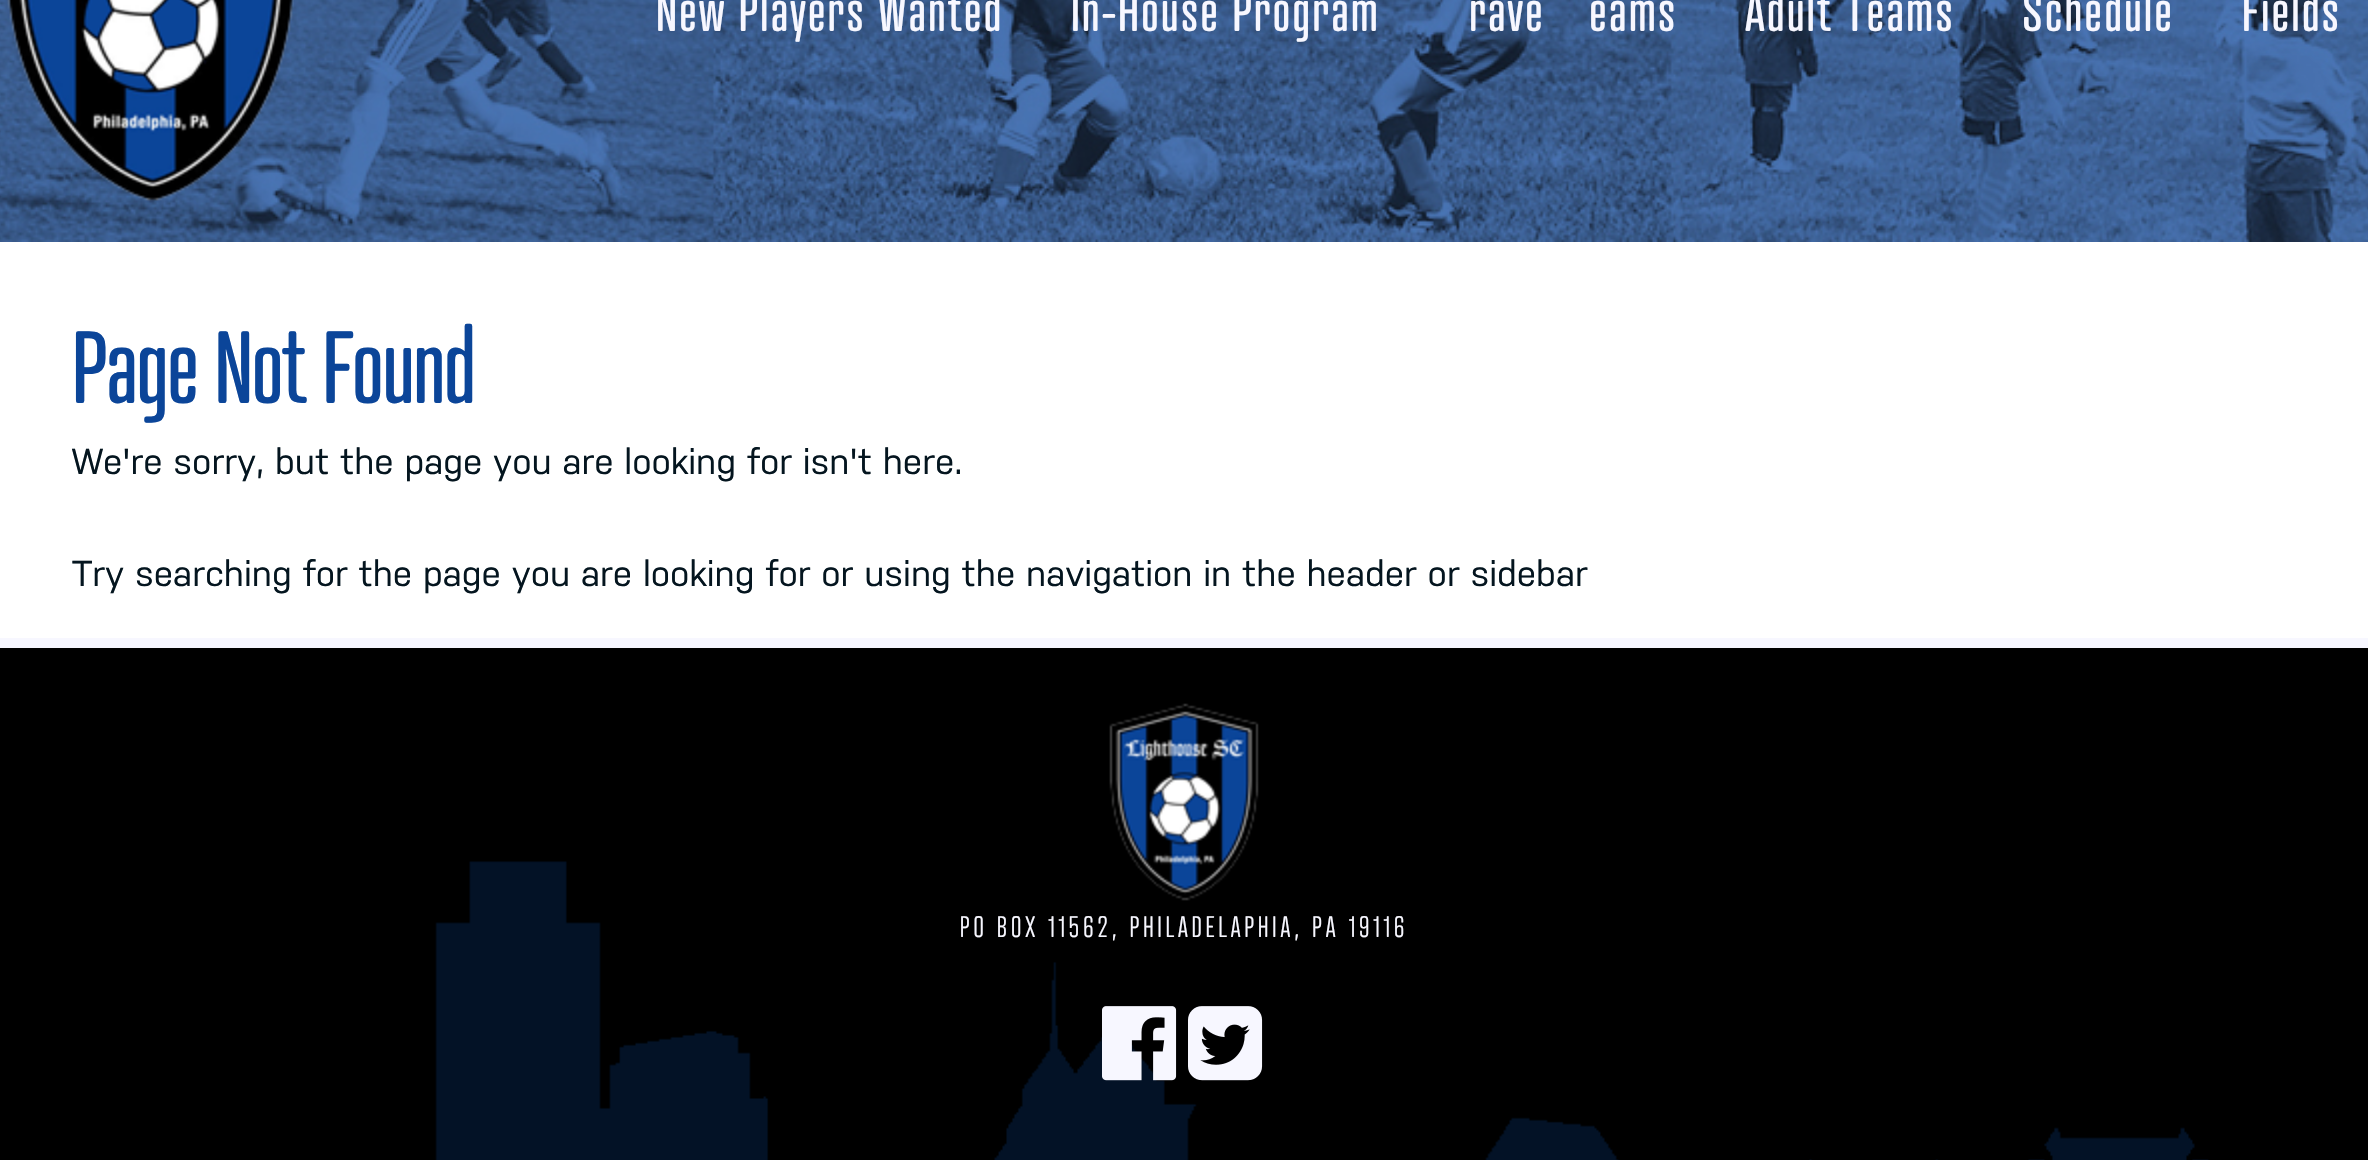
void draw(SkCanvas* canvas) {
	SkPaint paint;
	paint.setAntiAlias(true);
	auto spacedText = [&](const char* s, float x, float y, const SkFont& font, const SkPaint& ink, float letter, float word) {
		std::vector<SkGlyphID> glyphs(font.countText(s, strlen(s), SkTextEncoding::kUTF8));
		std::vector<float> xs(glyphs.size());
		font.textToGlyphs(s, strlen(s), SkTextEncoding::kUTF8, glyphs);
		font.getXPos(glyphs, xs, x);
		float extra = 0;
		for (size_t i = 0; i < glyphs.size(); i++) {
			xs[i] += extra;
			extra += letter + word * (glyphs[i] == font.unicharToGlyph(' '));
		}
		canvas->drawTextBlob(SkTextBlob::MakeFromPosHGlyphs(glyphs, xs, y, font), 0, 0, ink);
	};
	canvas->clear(0xffffffff);
	canvas->drawImageRect(SkImages::DeferredFromEncodedData(SkData::MakeFromFileName("img1.png")), SkRect::MakeXYWH(0, 0, 2368, 242), SkSamplingOptions());
	canvas->drawImageRect(SkImages::DeferredFromEncodedData(SkData::MakeFromFileName("img2.png")), SkRect::MakeXYWH(7, 0, 287, 201), SkSamplingOptions());
	SkFont f1(fontMgr->matchFamilyStyle("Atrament", SkFontStyle::Normal()), 54);
	f1.setSubpixel(true);
	paint.setColor(0xfff7f7ff);
	spacedText("New Players Wanted", 656, 31, f1, paint, 2, 0);
	spacedText("In-House Program", 1071, 31, f1, paint, 2, 0);
	spacedText("rave", 1469, 31, f1, paint, 2, 0);
	spacedText("eams", 1589, 31, f1, paint, 2, 0);
	spacedText("Adult Teams", 1745, 31, f1, paint, 2, 0);
	spacedText("Schedule", 2022, 31, f1, paint, 2, 0);
	spacedText("Fields", 2242, 31, f1, paint, 2, 0);
	SkFont f2(fontMgr->matchFamilyStyle("Atrament", SkFontStyle::Normal()), 99);
	f2.setSubpixel(true);
	paint.setColor(0xff0b4599);
	spacedText("Page Not Found", 72, 403, f2, paint, -2, 0);
	SkFont f3(fontMgr->matchFamilyStyle("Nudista", SkFontStyle(500, SkFontStyle::kNormal_Width, SkFontStyle::kUpright_Slant)), 36);
	f3.setSubpixel(true);
	paint.setColor(0xff04151f);
	canvas->drawString("We're sorry, but the page you are looking for isn't here.", 72, 474, f3, paint);
	canvas->drawString("Try searching for the page you are looking for or using the navigation in the header or sidebar", 72, 586, f3, paint);
	canvas->drawImageRect(SkImages::DeferredFromEncodedData(SkData::MakeFromFileName("img3.png")), SkRect::MakeXYWH(0, 648, 2368, 512), SkSamplingOptions());
	paint.setColor(0xfff7f7ff);
	canvas->drawRect(SkRect::MakeXYWH(0, 638, 2368, 10), paint);
	canvas->drawImageRect(SkImages::DeferredFromEncodedData(SkData::MakeFromFileName("img4.png")), SkRect::MakeXYWH(1109, 703, 150, 198), SkSamplingOptions());
	SkFont f4(fontMgr->matchFamilyStyle("Atrament", SkFontStyle(300, SkFontStyle::kNormal_Width, SkFontStyle::kUpright_Slant)), 28.75);
	f4.setSubpixel(true);
	spacedText("PO BOX 11562, PHILADELAPHIA, PA 19116", 960, 937, f4, paint, 4, 0);
	canvas->drawImageRect(SkImages::DeferredFromEncodedData(SkData::MakeFromFileName("img5.png")), SkRect::MakeXYWH(1102, 1006, 75, 75), SkSamplingOptions());
	canvas->drawImageRect(SkImages::DeferredFromEncodedData(SkData::MakeFromFileName("img6.png")), SkRect::MakeXYWH(1188, 1006, 75, 75), SkSamplingOptions());
}
